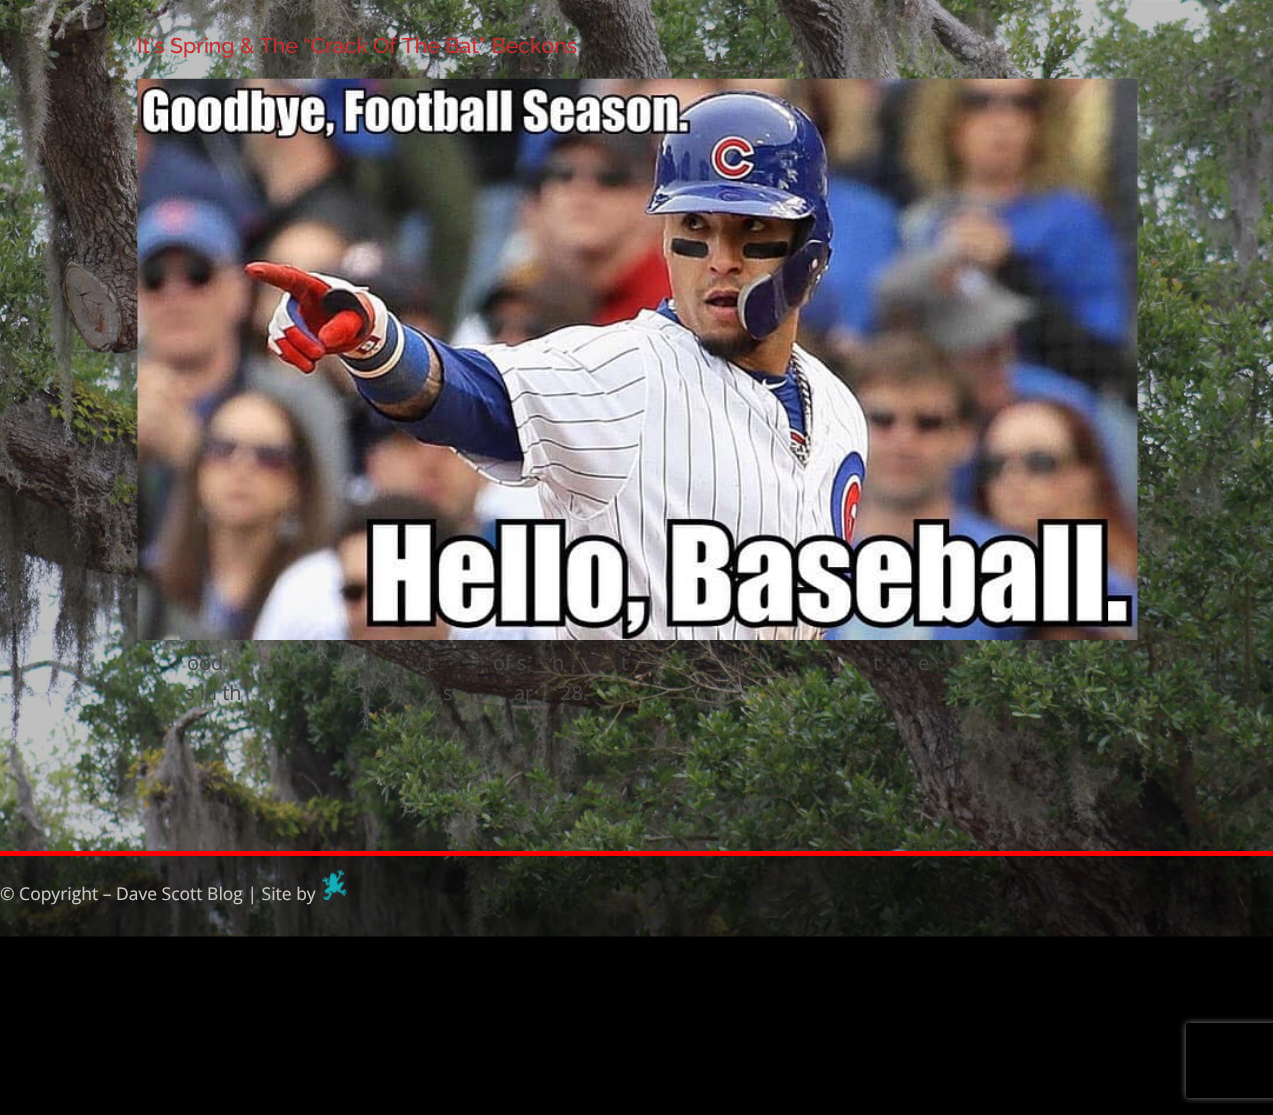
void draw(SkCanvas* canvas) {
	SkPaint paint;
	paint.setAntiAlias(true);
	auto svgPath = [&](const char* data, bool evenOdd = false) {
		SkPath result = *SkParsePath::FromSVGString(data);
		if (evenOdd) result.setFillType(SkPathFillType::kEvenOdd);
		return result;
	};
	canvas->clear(0xff000000);
	canvas->drawImageRect(SkImages::DeferredFromEncodedData(SkData::MakeFromFileName("img1.png")), SkRect::MakeXYWH(0, 0, 1273, 937), SkSamplingOptions());
	SkFont f1(fontMgr->matchFamilyStyle("Raleway", SkFontStyle(500, SkFontStyle::kNormal_Width, SkFontStyle::kUpright_Slant)), 21.25);
	f1.setSubpixel(true);
	paint.setColor(0xffc92c2c);
	canvas->drawString("It’s Spring & The “Crack Of The Bat” Beckons", 137, 53, f1, paint);
	canvas->drawImageRect(SkImages::DeferredFromEncodedData(SkData::MakeFromFileName("img2.png")), SkRect::MakeXYWH(137, 78, 1001, 562), SkSamplingOptions());
	SkFont f2(fontMgr->matchFamilyStyle("Open Sans", SkFontStyle::Normal()), 20);
	f2.setSubpixel(true);
	paint.setColor(0xff474747);
	canvas->drawString("ood", 187, 670, f2, paint);
	canvas->drawString("t", 427, 670, f2, paint);
	canvas->drawString("of s", 493, 670, f2, paint);
	canvas->drawString("n", 552, 670, f2, paint);
	canvas->drawString("t", 621, 670, f2, paint);
	canvas->drawString("t", 873, 670, f2, paint);
	canvas->drawString("e", 918, 670, f2, paint);
	canvas->drawString("s in th", 185, 700, f2, paint);
	canvas->drawString("s", 443, 700, f2, paint);
	canvas->drawString("ar", 514, 700, f2, paint);
	canvas->drawString("28.", 560, 700, f2, paint);
	paint.setColor(0x80000000);
	canvas->drawRect(SkRect::MakeXYWH(0, 856, 1273, 80), paint);
	paint.setColor(0xffff0000);
	canvas->drawRect(SkRect::MakeXYWH(0, 851, 1273, 5), paint);
	SkFont f3(fontMgr->matchFamilyStyle("Open Sans", SkFontStyle::Normal()), 17.5);
	f3.setSubpixel(true);
	paint.setColor(0xffccc8c8);
	canvas->drawString("© Copyright – Dave Scott Blog | Site by", 0, 900, f3, paint);
	canvas->drawImageRect(SkImages::DeferredFromEncodedData(SkData::MakeFromFileName("img3.png")), SkRect::MakeXYWH(322, 869, 25, 31), SkSamplingOptions());
	canvas->save();
	canvas->clipPath(svgPath("M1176 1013H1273V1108H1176ZM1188.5 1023H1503.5C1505 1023 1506 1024 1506 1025.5V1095.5C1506 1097 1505 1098 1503.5 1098H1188.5C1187 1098 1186 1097 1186 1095.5V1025.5C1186 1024 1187 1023 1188.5 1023Z", true), true);
	paint.setColor(0xff808080);
	paint.setMaskFilter(SkMaskFilter::MakeBlur(kNormal_SkBlurStyle, 3));
	canvas->drawRoundRect(SkRect::MakeXYWH(1186, 1023, 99, 75), 2.5, 2.5, paint);
	paint.setMaskFilter(nullptr);
	canvas->restore();
}
